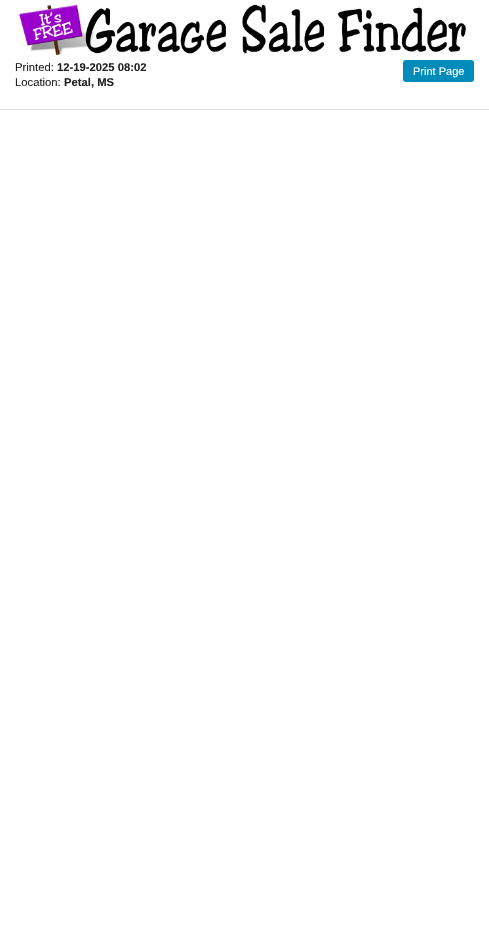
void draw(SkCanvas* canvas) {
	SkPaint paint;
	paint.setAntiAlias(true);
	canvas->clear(0xffffffff);
	canvas->drawImageRect(SkImages::DeferredFromEncodedData(SkData::MakeFromFileName("img1.png")), SkRect::MakeXYWH(19, 4, 447, 52), SkSamplingOptions());
	SkFont f1(fontMgr->matchFamilyStyle("Liberation Sans", SkFontStyle::Normal()), 11.25);
	f1.setSubpixel(true);
	paint.setColor(0xff222222);
	canvas->drawString("Printed:", 15, 71, f1, paint);
	SkFont f2(fontMgr->matchFamilyStyle("Liberation Sans", SkFontStyle::Bold()), 11.25);
	f2.setSubpixel(true);
	canvas->drawString("12-19-2025 08:02", 57, 71, f2, paint);
	canvas->drawString("Location:", 15, 86, f1, paint);
	canvas->drawString("Petal, MS", 64, 86, f2, paint);
	paint.setColor(0xff008cba);
	canvas->drawRoundRect(SkRect::MakeXYWH(403, 60, 71, 22), 3, 3, paint);
	SkFont f3(fontMgr->matchFamilyStyle("Liberation Sans", SkFontStyle::Normal()), 11);
	f3.setSubpixel(true);
	paint.setColor(0xffffffff);
	canvas->drawString("Print Page", 413, 75, f3, paint);
	paint.setColor(0xffdddddd);
	canvas->drawRect(SkRect::MakeXYWH(0, 109, 489, 1), paint);
}
